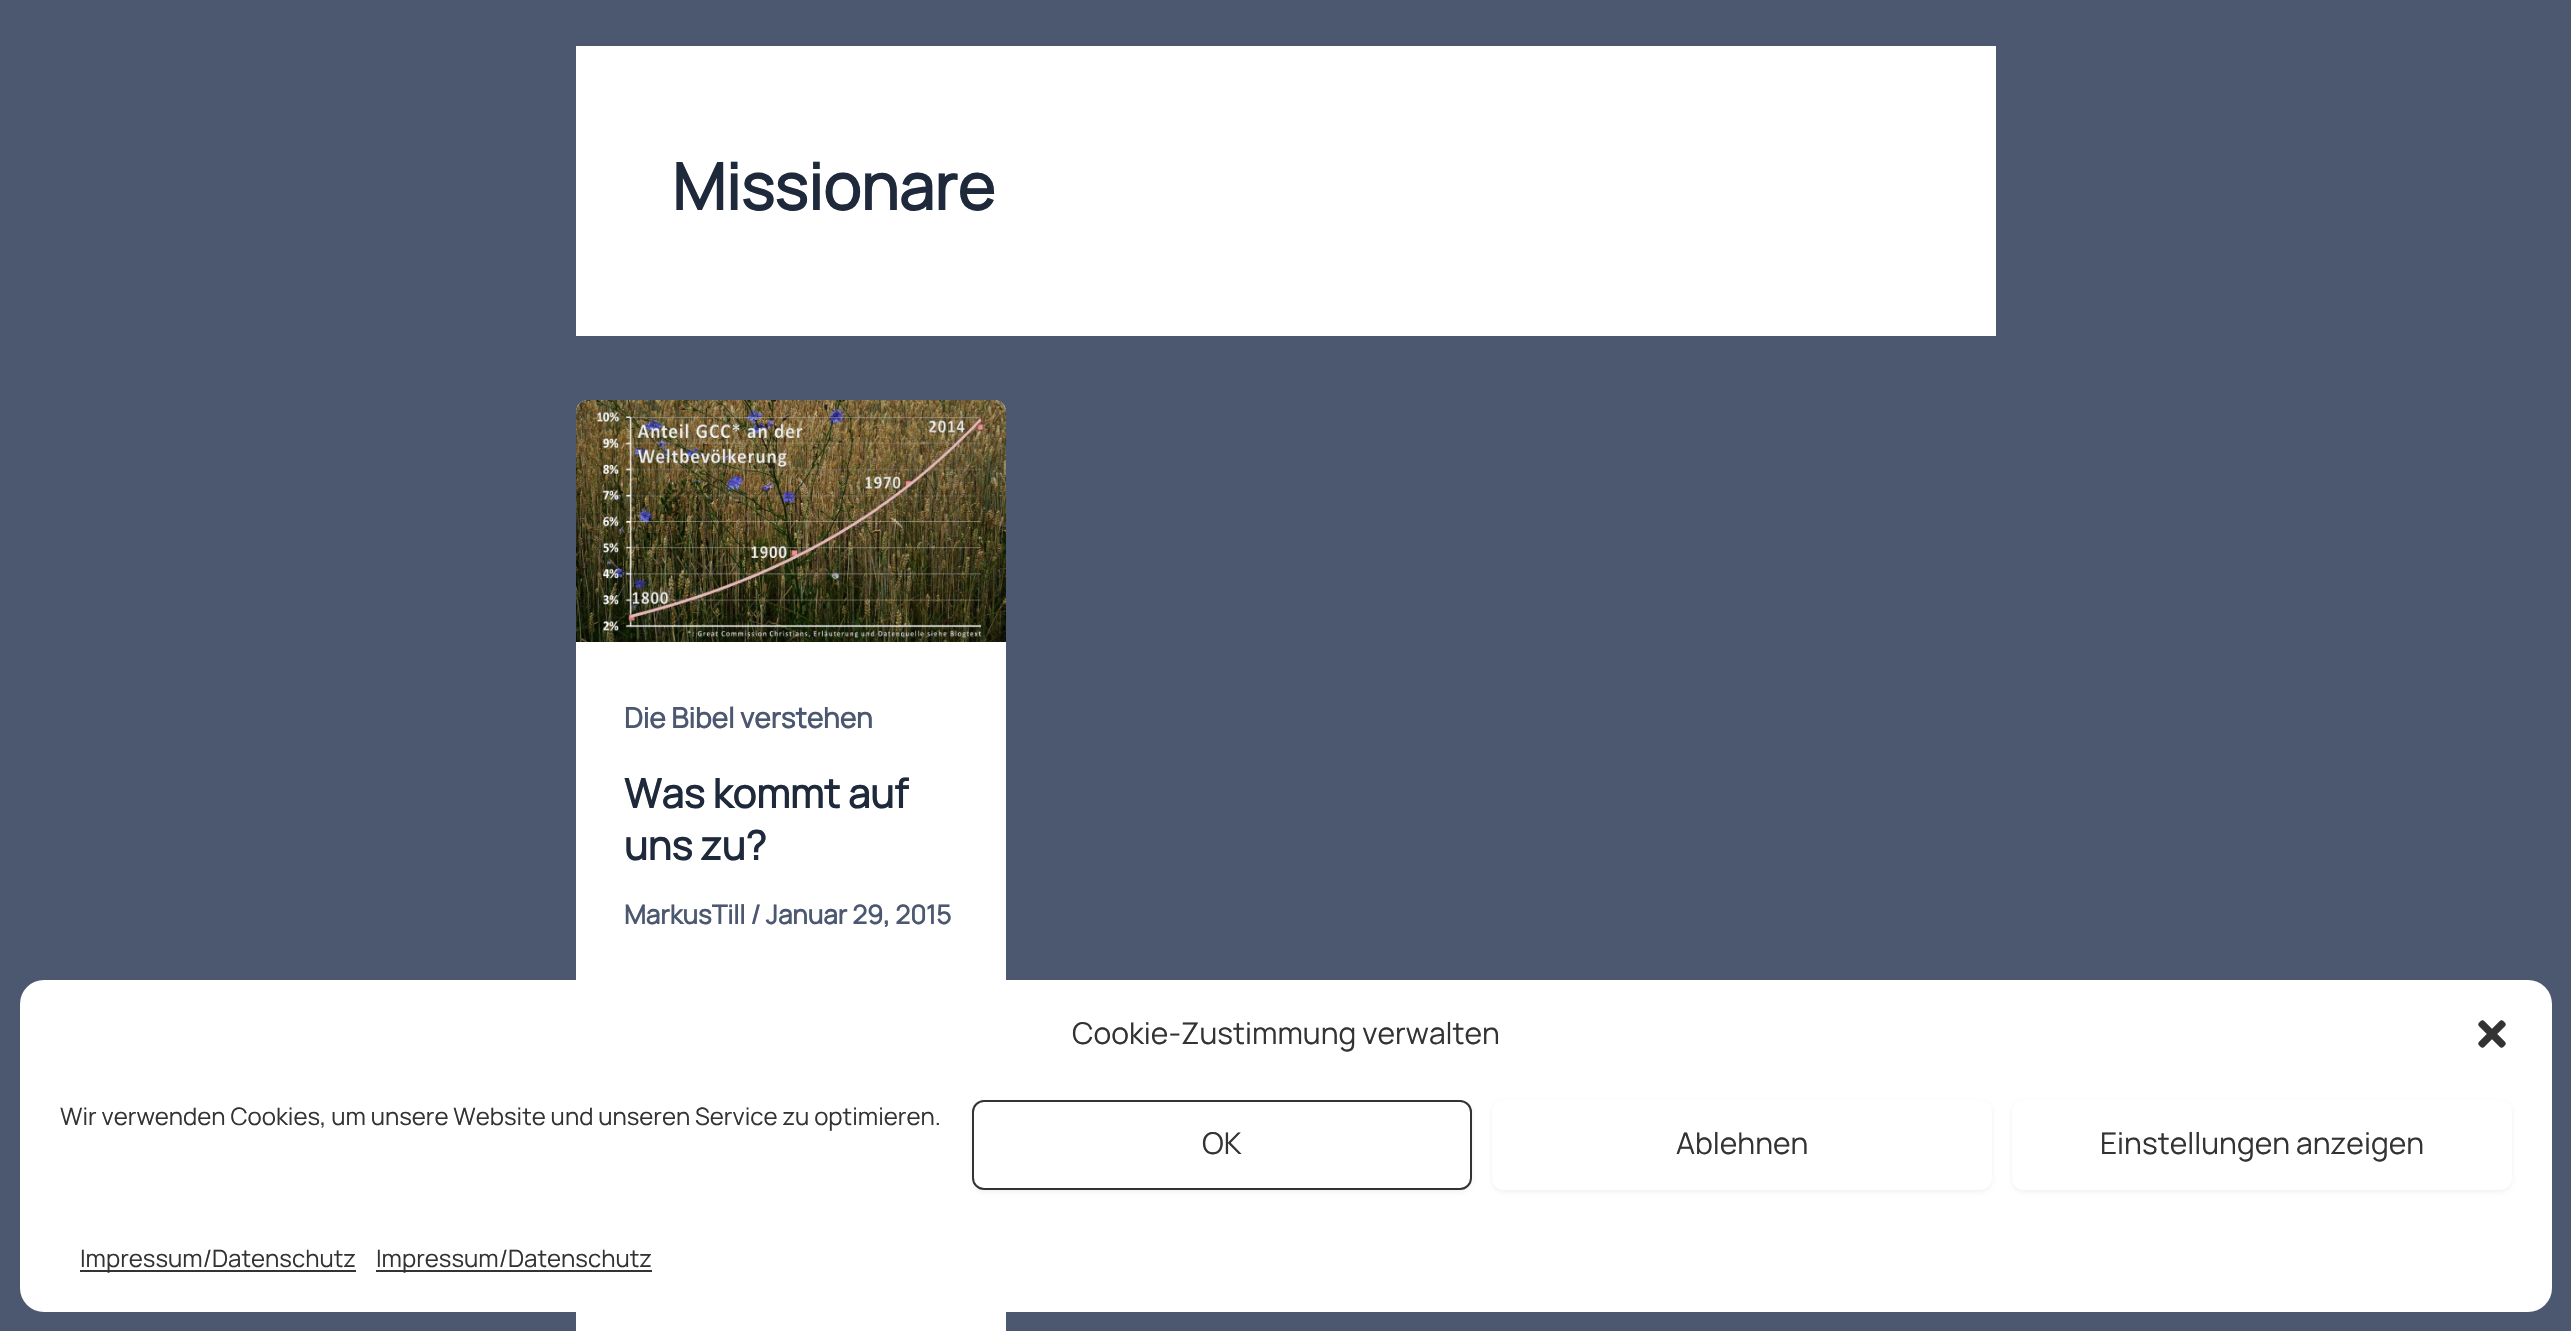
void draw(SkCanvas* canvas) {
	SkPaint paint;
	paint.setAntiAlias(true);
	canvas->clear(0xff4c5770);
	paint.setColor(0xffffffff);
	canvas->drawRect(SkRect::MakeXYWH(576, 46, 1420, 290), paint);
	SkFont f1(fontMgr->matchFamilyStyle("Manrope", SkFontStyle::Bold()), 64);
	f1.setSubpixel(true);
	paint.setColor(0xff1e293b);
	canvas->drawString("Missionare", 672, 210, f1, paint);
	paint.setColor(0xffffffff);
	canvas->drawRoundRect(SkRect::MakeXYWH(576, 400, 430, 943), 12, 12, paint);
	canvas->drawImageRect(SkImages::DeferredFromEncodedData(SkData::MakeFromFileName("img1.png")), SkRect::MakeXYWH(576, 400, 430, 242), SkSamplingOptions());
	SkFont f2(fontMgr->matchFamilyStyle("Manrope", SkFontStyle::Bold()), 28);
	f2.setSubpixel(true);
	paint.setColor(0xff4c5770);
	canvas->drawString("Die Bibel verstehen", 624, 728, f2, paint);
	SkFont f3(fontMgr->matchFamilyStyle("Manrope", SkFontStyle::Bold()), 40);
	f3.setSubpixel(true);
	paint.setColor(0xff1e293b);
	canvas->drawString("Was kommt auf", 624, 808, f3, paint);
	canvas->drawString("uns zu?", 624, 860, f3, paint);
	SkFont f4(fontMgr->matchFamilyStyle("Manrope", SkFontStyle::Bold()), 26);
	f4.setSubpixel(true);
	paint.setColor(0xff4c5770);
	canvas->drawString("MarkusTill / Januar 29, 2015", 624, 924, f4, paint);
	paint.setColor(0xffffffff);
	canvas->drawRoundRect(SkRect::MakeXYWH(20, 980, 2532, 332), 24, 24, paint);
	SkFont f5(fontMgr->matchFamilyStyle("Manrope", SkFontStyle(200, SkFontStyle::kNormal_Width, SkFontStyle::kUpright_Slant)), 30);
	f5.setSubpixel(true);
	paint.setColor(0xff333333);
	canvas->drawString("Cookie-Zustimmung verwalten", 1072, 1044, f5, paint);
	canvas->drawImageRect(SkImages::DeferredFromEncodedData(SkData::MakeFromFileName("img2.png")), SkRect::MakeXYWH(2478, 1020, 28, 28), SkSamplingOptions());
	SkFont f6(fontMgr->matchFamilyStyle("Manrope", SkFontStyle(200, SkFontStyle::kNormal_Width, SkFontStyle::kUpright_Slant)), 24);
	f6.setSubpixel(true);
	canvas->drawString("Wir verwenden Cookies, um unsere Website und unseren Service zu optimieren.", 60, 1125, f6, paint);
	paint.setColor(0x0d000000);
	paint.setMaskFilter(SkMaskFilter::MakeBlur(kNormal_SkBlurStyle, 2));
	canvas->drawRoundRect(SkRect::MakeXYWH(972, 1102, 500, 90), 12, 12, paint);
	paint.setMaskFilter(nullptr);
	paint.setColor(0xffffffff);
	canvas->drawRoundRect(SkRect::MakeXYWH(973, 1101, 498, 88), 11, 11, paint);
	paint.setStroke(true);
	paint.setStrokeWidth(2);
	paint.setColor(0xff333333);
	canvas->drawRoundRect(SkRect::MakeXYWH(973, 1101, 498, 88), 11, 11, paint);
	paint.setStroke(false);
	canvas->drawString("OK", 1202, 1154, f5, paint);
	paint.setColor(0x0d000000);
	paint.setMaskFilter(SkMaskFilter::MakeBlur(kNormal_SkBlurStyle, 2));
	canvas->drawRoundRect(SkRect::MakeXYWH(1492, 1102, 500, 90), 12, 12, paint);
	paint.setMaskFilter(nullptr);
	paint.setColor(0xffffffff);
	canvas->drawRoundRect(SkRect::MakeXYWH(1492, 1100, 500, 90), 12, 12, paint);
	paint.setColor(0xff333333);
	canvas->drawString("Ablehnen", 1676, 1154, f5, paint);
	paint.setColor(0x0d000000);
	paint.setMaskFilter(SkMaskFilter::MakeBlur(kNormal_SkBlurStyle, 2));
	canvas->drawRoundRect(SkRect::MakeXYWH(2012, 1102, 500, 90), 12, 12, paint);
	paint.setMaskFilter(nullptr);
	paint.setColor(0xffffffff);
	canvas->drawRoundRect(SkRect::MakeXYWH(2012, 1100, 500, 90), 12, 12, paint);
	paint.setColor(0xff333333);
	canvas->drawString("Einstellungen anzeigen", 2100, 1154, f5, paint);
	canvas->drawRect(SkRect::MakeXYWH(80, 1270, 276, 2), paint);
	canvas->drawString("Impressum/Datenschutz", 80, 1267, f6, paint);
	canvas->drawRect(SkRect::MakeXYWH(376, 1270, 276, 2), paint);
	canvas->drawString("Impressum/Datenschutz", 376, 1267, f6, paint);
}
